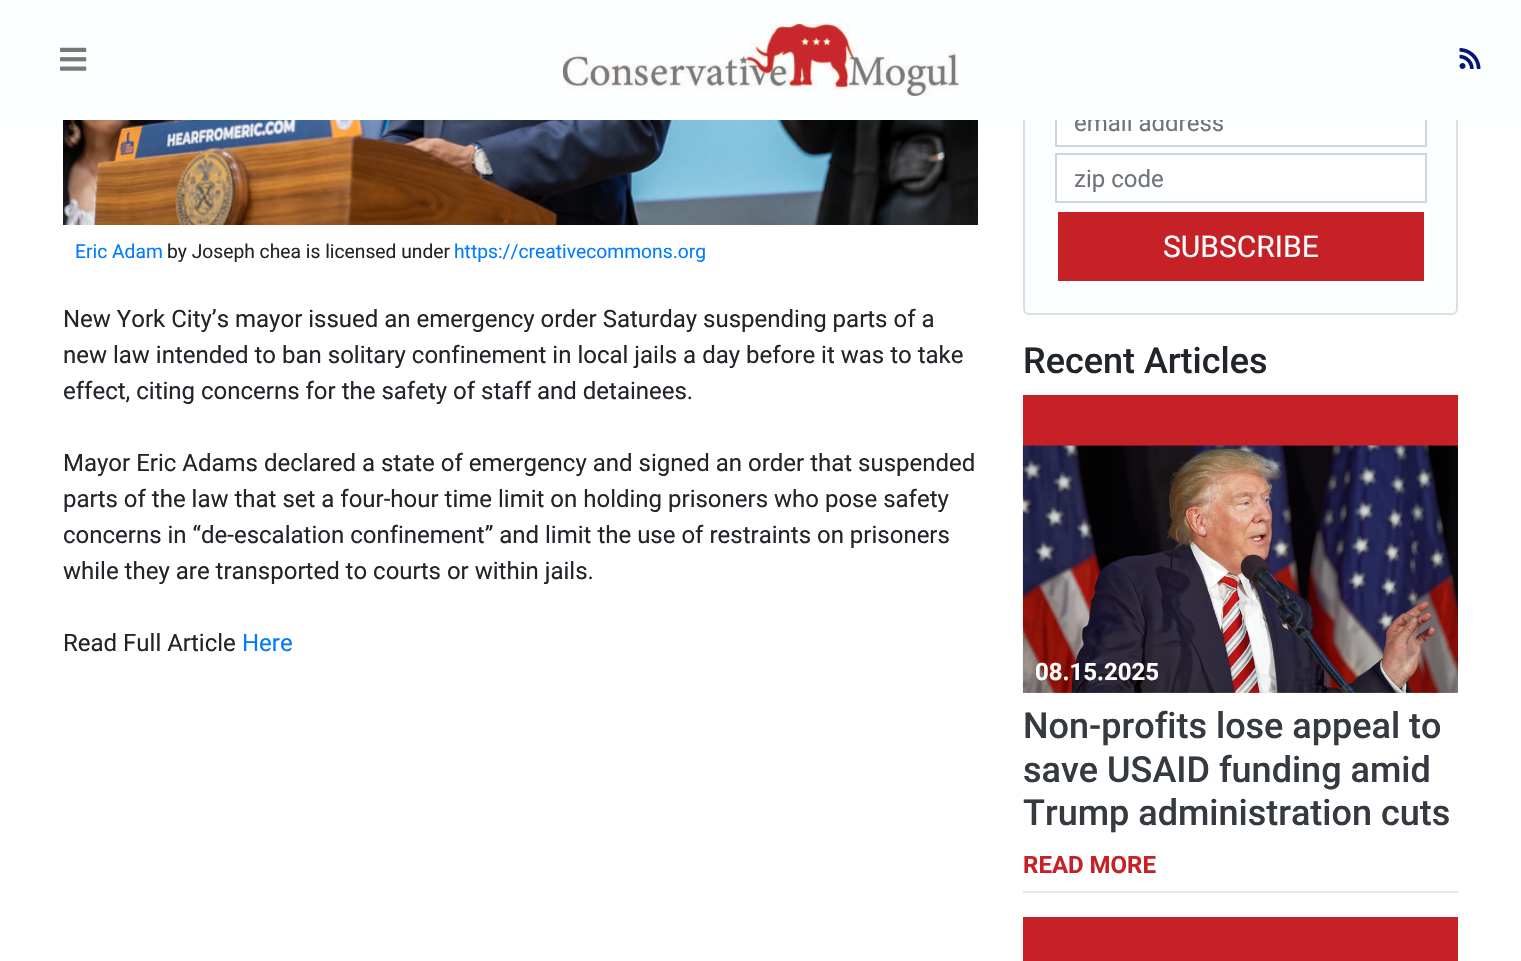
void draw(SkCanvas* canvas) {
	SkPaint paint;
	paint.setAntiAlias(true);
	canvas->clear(0xffffffff);
	paint.setColor(0xfffbfeff);
	canvas->drawRoundRect(SkRect::MakeXYWH(1024, -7, 433, 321), 5, 5, paint);
	paint.setStroke(true);
	paint.setStrokeWidth(2);
	paint.setColor(0xffdcdedf);
	canvas->drawRoundRect(SkRect::MakeXYWH(1024, -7, 433, 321), 5, 5, paint);
	paint.setStroke(false);
	paint.setColor(0xffffffff);
	canvas->drawRect(SkRect::MakeXYWH(1057, 120, 368, 25), paint);
	paint.setStroke(true);
	paint.setColor(0xffced4da);
	canvas->drawRect(SkRect::MakeXYWH(1056, 99, 370, 47), paint);
	SkFont f1(fontMgr->matchFamilyStyle("Roboto", SkFontStyle::Normal()), 24);
	f1.setSubpixel(true);
	paint.setStroke(false);
	paint.setColor(0xff6c757d);
	canvas->drawString("email address", 1074, 131, f1, paint);
	paint.setColor(0xfffbfeff);
	canvas->drawRect(SkRect::MakeXYWH(0, 0, 1521, 120), paint);
	canvas->drawImageRect(SkImages::DeferredFromEncodedData(SkData::MakeFromFileName("img1.png")), SkRect::MakeXYWH(60, 47, 27, 24), SkSamplingOptions());
	canvas->drawImageRect(SkImages::DeferredFromEncodedData(SkData::MakeFromFileName("img2.png")), SkRect::MakeXYWH(563, 24, 396, 72), SkSamplingOptions());
	canvas->drawImageRect(SkImages::DeferredFromEncodedData(SkData::MakeFromFileName("img3.png")), SkRect::MakeXYWH(1459, 48, 22, 21), SkSamplingOptions());
	canvas->drawImageRect(SkImages::DeferredFromEncodedData(SkData::MakeFromFileName("img4.png")), SkRect::MakeXYWH(63, 120, 915, 105), SkSamplingOptions());
	SkFont f2(fontMgr->matchFamilyStyle("Roboto", SkFontStyle::Normal()), 19.25);
	f2.setSubpixel(true);
	paint.setColor(0xff007bff);
	canvas->drawString("Eric Adam", 75, 258, f2, paint);
	paint.setColor(0xff212529);
	canvas->drawString("by Joseph chea is licensed under", 167, 258, f2, paint);
	paint.setColor(0xff007bff);
	canvas->drawString("https://creativecommons.org", 454, 258, f2, paint);
	paint.setColor(0xff212529);
	canvas->drawString("New York City’s mayor issued an emergency order Saturday suspending parts of a", 63, 327, f1, paint);
	canvas->drawString("new law intended to ban solitary confinement in local jails a day before it was to take", 63, 363, f1, paint);
	canvas->drawString("effect, citing concerns for the safety of staff and detainees.", 63, 399, f1, paint);
	canvas->drawString("Mayor Eric Adams declared a state of emergency and signed an order that suspended", 63, 471, f1, paint);
	canvas->drawString("parts of the law that set a four-hour time limit on holding prisoners who pose safety", 63, 507, f1, paint);
	canvas->drawString("concerns in “de-escalation confinement” and limit the use of restraints on prisoners", 63, 543, f1, paint);
	canvas->drawString("while they are transported to courts or within jails.", 63, 579, f1, paint);
	canvas->drawString("Read Full Article", 63, 651, f1, paint);
	paint.setColor(0xff007bff);
	canvas->drawString("Here", 242, 651, f1, paint);
	paint.setColor(0xffffffff);
	canvas->drawRect(SkRect::MakeXYWH(1056, 154, 370, 48), paint);
	paint.setStroke(true);
	paint.setColor(0xffced4da);
	canvas->drawRect(SkRect::MakeXYWH(1056, 154, 370, 48), paint);
	paint.setStroke(false);
	paint.setColor(0xff6c757d);
	canvas->drawString("zip code", 1074, 187, f1, paint);
	paint.setColor(0xffc62127);
	canvas->drawRect(SkRect::MakeXYWH(1056.5, 210.5, 369, 72), paint);
	paint.setStroke(true);
	paint.setStrokeWidth(3);
	paint.setColor(0xffffffff);
	canvas->drawRect(SkRect::MakeXYWH(1056.5, 210.5, 369, 72), paint);
	SkFont f3(fontMgr->matchFamilyStyle("Roboto", SkFontStyle::Normal()), 30);
	f3.setSubpixel(true);
	paint.setStroke(false);
	canvas->drawString("SUBSCRIBE", 1163, 257, f3, paint);
	SkFont f4(fontMgr->matchFamilyStyle("Roboto", SkFontStyle(500, SkFontStyle::kNormal_Width, SkFontStyle::kUpright_Slant)), 36);
	f4.setSubpixel(true);
	paint.setColor(0xff212529);
	canvas->drawString("Recent Articles", 1023, 373, f4, paint);
	paint.setColor(0xffc62127);
	canvas->drawRect(SkRect::MakeXYWH(1023, 395, 435, 51), paint);
	canvas->drawImageRect(SkImages::DeferredFromEncodedData(SkData::MakeFromFileName("img5.png")), SkRect::MakeXYWH(1022, 445, 436, 248), SkSamplingOptions());
	SkFont f5(fontMgr->matchFamilyStyle("Roboto", SkFontStyle::Bold()), 24);
	f5.setSubpixel(true);
	paint.setColor(0xffffffff);
	canvas->drawString("08.15.2025", 1035, 680, f5, paint);
	paint.setColor(0xff343a40);
	canvas->drawString("Non-profits lose appeal to", 1023, 738, f4, paint);
	canvas->drawString("save USAID funding amid", 1023, 782, f4, paint);
	canvas->drawString("Trump administration cuts", 1023, 825, f4, paint);
	paint.setColor(0xffc62127);
	canvas->drawString("READ MORE", 1023, 873, f5, paint);
	paint.setColor(0xffe6e6e6);
	canvas->drawRect(SkRect::MakeXYWH(1023, 891, 435, 2), paint);
	paint.setColor(0xffc62127);
	canvas->drawRect(SkRect::MakeXYWH(1023, 917, 435, 44), paint);
}
